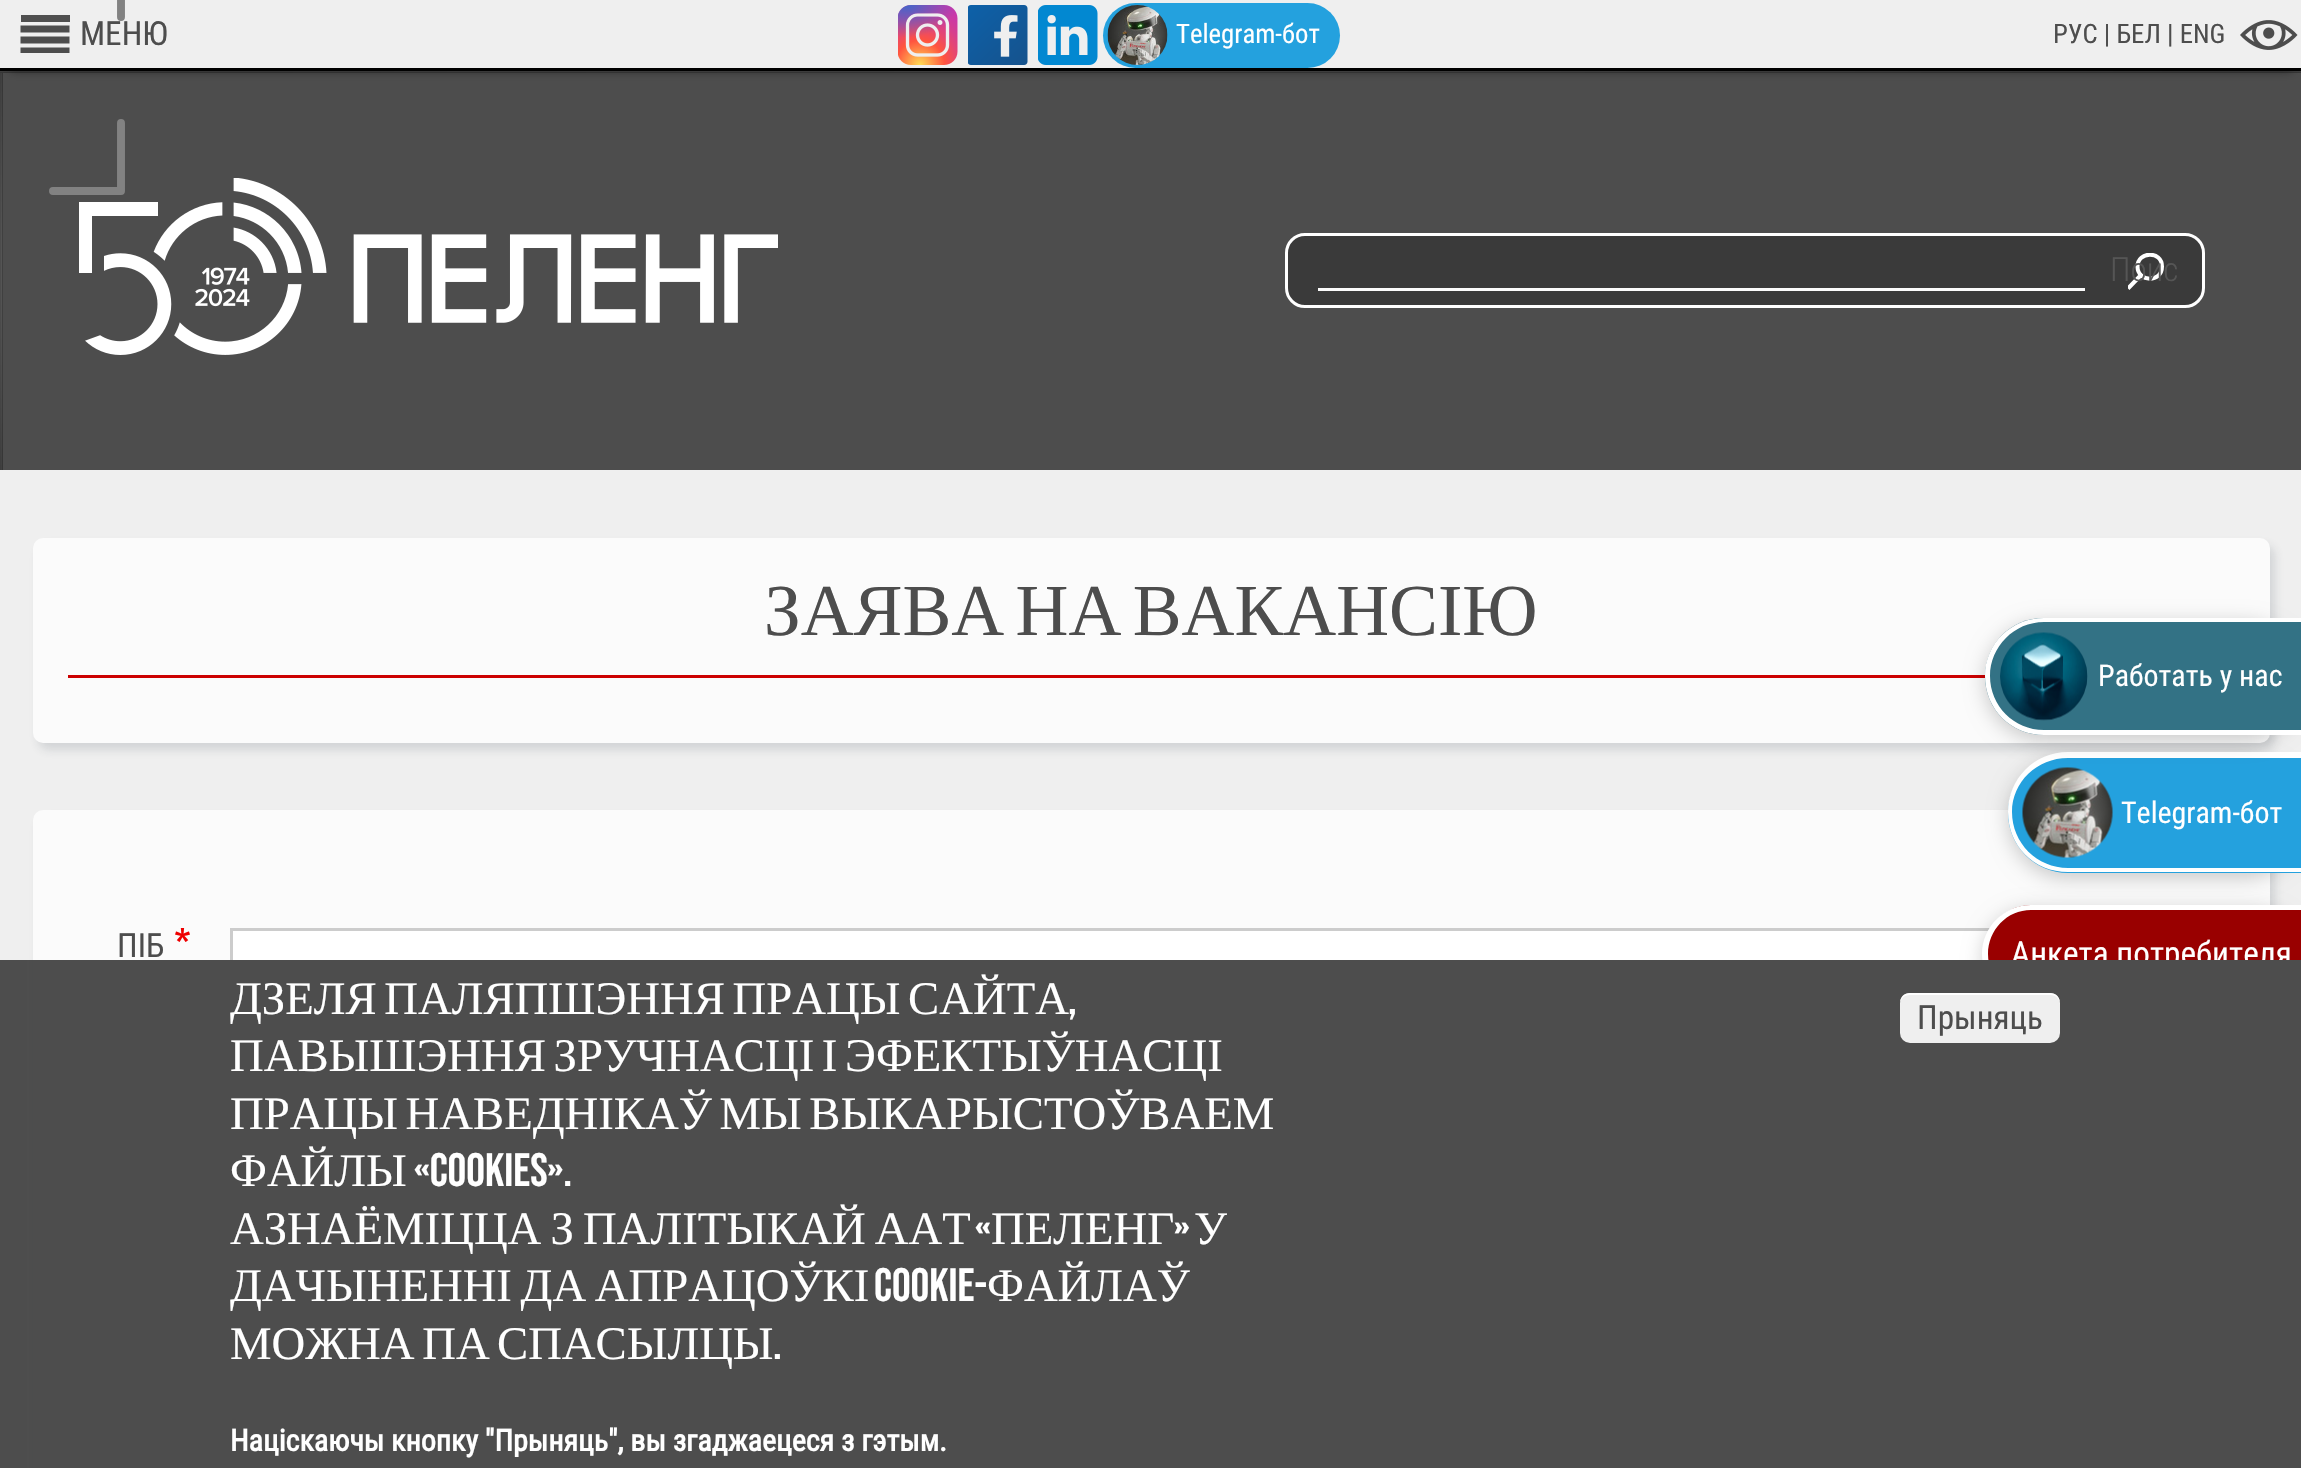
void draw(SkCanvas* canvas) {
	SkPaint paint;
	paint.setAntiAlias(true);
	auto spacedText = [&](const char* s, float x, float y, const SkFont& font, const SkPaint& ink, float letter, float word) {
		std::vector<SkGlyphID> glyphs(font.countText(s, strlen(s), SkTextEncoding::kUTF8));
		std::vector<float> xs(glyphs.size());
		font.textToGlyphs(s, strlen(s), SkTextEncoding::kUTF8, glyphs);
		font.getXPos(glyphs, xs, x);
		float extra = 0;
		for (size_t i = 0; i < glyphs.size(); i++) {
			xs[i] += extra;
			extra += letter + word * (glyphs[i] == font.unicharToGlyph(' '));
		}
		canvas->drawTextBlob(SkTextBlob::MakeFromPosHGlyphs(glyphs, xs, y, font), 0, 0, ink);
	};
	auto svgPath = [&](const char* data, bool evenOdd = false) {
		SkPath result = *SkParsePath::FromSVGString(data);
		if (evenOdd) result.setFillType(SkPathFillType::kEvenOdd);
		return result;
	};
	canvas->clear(0xff4d4d4d);
	{
		const SkColor colors[] = {0xff5a5a5a, 0xff363636};
		const float stops[] = {0, 1};
		SkMatrix m = SkMatrix::Translate(1.2, 270).preScale(1.8, 283);
		paint.setShader(SkGradientShader::MakeRadial({0, 0}, 1, colors, stops, 2, SkTileMode::kClamp, 0, &m));
		paint.setAlpha(255);
	}
	canvas->drawRect(SkRect::MakeXYWH(0, 70, 3, 400), paint);
	{
		const SkColor colors[] = {0xff5a5a5a, 0xff363636};
		const float stops[] = {0, 1};
		SkMatrix m = SkMatrix::Translate(1151, 71).preScale(1628, 1.8);
		paint.setShader(SkGradientShader::MakeRadial({0, 0}, 1, colors, stops, 2, SkTileMode::kClamp, 0, &m));
		paint.setAlpha(255);
	}
	canvas->drawRect(SkRect::MakeXYWH(0, 71, 2301, 2), paint);
	paint.setShader(nullptr);
	paint.setColor(0xff202020);
	paint.setMaskFilter(SkMaskFilter::MakeBlur(kNormal_SkBlurStyle, 5));
	canvas->drawRect(SkRect::MakeXYWH(10, 20, 2283, 50), paint);
	paint.setMaskFilter(nullptr);
	paint.setColor(0xffefefef);
	canvas->drawRect(SkRect::MakeXYWH(0, 0, 2301, 68), paint);
	paint.setColor(0xff000000);
	canvas->drawRect(SkRect::MakeXYWH(0, 68, 2301, 3), paint);
	paint.setColor(0xff4f4f4f);
	canvas->drawRect(SkRect::MakeXYWH(21, 15, 49, 7), paint);
	paint.setStroke(true);
	paint.setStrokeWidth(6.9);
	paint.setColor(0xff4d4d4d);
	canvas->drawPath(svgPath("M20.5 29H69.5M20.5 40H69.5"), paint);
	canvas->save();
	canvas->clipRect(SkRect::MakeXYWH(20, 15, 50, 38));
	canvas->drawPath(svgPath("M20.5 51H69.5"), paint);
	canvas->restore();
	SkFont f1(fontMgr->matchFamilyStyle("Roboto Condensed", SkFontStyle::Normal()), 33.25);
	f1.setSubpixel(true);
	paint.setStroke(false);
	canvas->drawString("МЕНЮ", 80, 45, f1, paint);
	canvas->drawImageRect(SkImages::DeferredFromEncodedData(SkData::MakeFromFileName("img1.png")), SkRect::MakeXYWH(898, 5, 60, 60), SkSamplingOptions());
	canvas->drawImageRect(SkImages::DeferredFromEncodedData(SkData::MakeFromFileName("img2.png")), SkRect::MakeXYWH(968, 5, 60, 60), SkSamplingOptions());
	canvas->drawImageRect(SkImages::DeferredFromEncodedData(SkData::MakeFromFileName("img3.png")), SkRect::MakeXYWH(1038, 5, 60, 60), SkSamplingOptions());
	paint.setColor(0xff24a1de);
	canvas->drawRoundRect(SkRect::MakeXYWH(1103, 3, 237, 65), 32.5, 32.5, paint);
	canvas->drawImageRect(SkImages::DeferredFromEncodedData(SkData::MakeFromFileName("img4.png")), SkRect::MakeXYWH(1107, 5, 61, 60), SkSamplingOptions());
	SkFont f2(fontMgr->matchFamilyStyle("Roboto Condensed", SkFontStyle::Normal()), 26.75);
	f2.setSubpixel(true);
	paint.setColor(0xffffffff);
	canvas->drawString("Telegram-бот", 1176, 43, f2, paint);
	paint.setColor(0xff4d4d4d);
	canvas->drawString("РУС | БЕЛ | ENG", 2053, 43, f2, paint);
	canvas->drawImageRect(SkImages::DeferredFromEncodedData(SkData::MakeFromFileName("img5.png")), SkRect::MakeXYWH(2240, 20, 58, 30), SkSamplingOptions());
	paint.setStroke(true);
	paint.setStrokeWidth(7.9);
	paint.setStrokeCap(SkPaint::kRound_Cap);
	paint.setStrokeJoin(SkPaint::kRound_Join);
	paint.setColor(0xff828282);
	canvas->drawPath(svgPath("M-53-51H-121V17M121 17V-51H53M-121 123V191H-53M53 191H121V123"), paint);
	canvas->drawImageRect(SkImages::DeferredFromEncodedData(SkData::MakeFromFileName("img6.png")), SkRect::MakeXYWH(79, 178, 699, 177), SkSamplingOptions());
	paint.setStroke(false);
	paint.setColor(0xff3a3a3a);
	canvas->drawRoundRect(SkRect::MakeXYWH(1286.5, 234.5, 917, 72), 18.5, 18.5, paint);
	paint.setStroke(true);
	paint.setStrokeWidth(3);
	paint.setStrokeCap(SkPaint::kButt_Cap);
	paint.setStrokeJoin(SkPaint::kMiter_Join);
	paint.setColor(0xffffffff);
	canvas->drawRoundRect(SkRect::MakeXYWH(1286.5, 234.5, 917, 72), 18.5, 18.5, paint);
	canvas->save();
	canvas->clipRect(SkRect::MakeXYWH(2128, 253, 37, 37));
	paint.setStrokeWidth(4);
	canvas->drawPath(svgPath("M2141 275L2128 288.5M2162 266.5C2162 283 2137.5 282.5 2137.5 266.5C2137.5 251 2162 250.5 2162 266.5Z"), paint);
	canvas->restore();
	SkFont f3(fontMgr->matchFamilyStyle("Roboto Condensed", SkFontStyle(300, SkFontStyle::kNormal_Width, SkFontStyle::kUpright_Slant)), 33.25);
	f3.setSubpixel(true);
	paint.setStroke(false);
	paint.setColor(0xff555555);
	canvas->drawString("Поис", 2110, 281, f3, paint);
	paint.setColor(0xfffbfbfb);
	canvas->drawRect(SkRect::MakeXYWH(1318, 288, 767, 3), paint);
	paint.setColor(0xffefefef);
	canvas->drawRect(SkRect::MakeXYWH(0, 470, 2301, 490), paint);
	paint.setColor(0x262e3d49);
	paint.setMaskFilter(SkMaskFilter::MakeBlur(kNormal_SkBlurStyle, 5));
	canvas->drawRoundRect(SkRect::MakeXYWH(38, 545, 2237, 205), 10, 10, paint);
	paint.setMaskFilter(nullptr);
	paint.setColor(0xfffbfbfb);
	canvas->drawRoundRect(SkRect::MakeXYWH(33, 538, 2237, 205), 10, 10, paint);
	paint.setColor(0xffcc0000);
	canvas->drawRect(SkRect::MakeXYWH(68, 675, 1918, 3), paint);
	SkFont f4(fontMgr->matchFamilyStyle("Liberation Serif", SkFontStyle::Normal()), 73.25);
	f4.setSubpixel(true);
	paint.setColor(0xff4d4d4d);
	spacedText("ЗАЯВА НА ВАКАНСІЮ", 764, 635, f4, paint, 0, -7);
	paint.setColor(0x262e3d49);
	paint.setMaskFilter(SkMaskFilter::MakeBlur(kNormal_SkBlurStyle, 5));
	canvas->drawRoundRect(SkRect::MakeXYWH(38, 818, 2237, 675), 10, 10, paint);
	paint.setMaskFilter(nullptr);
	paint.setColor(0xfffbfbfb);
	canvas->drawRoundRect(SkRect::MakeXYWH(33, 810, 2237, 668), 10, 10, paint);
	paint.setColor(0xff4d4d4d);
	canvas->drawString("ПІБ", 117, 957, f1, paint);
	canvas->drawImageRect(SkImages::DeferredFromEncodedData(SkData::MakeFromFileName("img7.png")), SkRect::MakeXYWH(175, 928, 15, 14), SkSamplingOptions());
	paint.setColor(0xffffffff);
	canvas->drawRect(SkRect::MakeXYWH(233, 931, 1755, 29), paint);
	paint.setStroke(true);
	paint.setStrokeWidth(3);
	paint.setColor(0xffcccccc);
	canvas->drawRect(SkRect::MakeXYWH(231.5, 929.5, 1952, 44), paint);
	paint.setStroke(false);
	paint.setColor(0x33000000);
	paint.setMaskFilter(SkMaskFilter::MakeBlur(kNormal_SkBlurStyle, 10));
	canvas->drawRoundRect(SkRect::MakeXYWH(1983, 910, 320, 98), 49, 49, paint);
	paint.setMaskFilter(nullptr);
	paint.setColor(0xff990000);
	canvas->drawPath(svgPath("M2032 905H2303V1003H2032C2005 1003 1983 981 1983 954C1983 927 2005 905 2032 905Z"), paint);
	paint.setColor(0xffffffff);
	canvas->drawPath(svgPath("M2031 905H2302V1002H2031C2004 1002 1982 981 1982 954C1982 927 2004 905 2031 905ZM2031 910H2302V998H2031C2007 998 1988 978 1988 954C1988 930 2007 910 2031 910Z", true), paint);
	canvas->drawString("Анкета потребителя", 2011, 965, f1, paint);
	paint.setColor(0x33000000);
	paint.setMaskFilter(SkMaskFilter::MakeBlur(kNormal_SkBlurStyle, 10));
	canvas->drawRoundRect(SkRect::MakeXYWH(2008, 758, 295, 120), 60, 60, paint);
	paint.setMaskFilter(nullptr);
	paint.setColor(0xff24a1de);
	canvas->drawPath(svgPath("M2068 753H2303V873H2068C2035 873 2008 846 2008 813C2008 780 2035 753 2068 753Z"), paint);
	paint.setColor(0xffffffff);
	canvas->drawPath(svgPath("M2068 752H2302V872H2068C2034 872 2008 846 2008 812C2008 779 2034 752 2068 752ZM2068 758H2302V868H2068C2037 868 2012 843 2012 812C2012 782 2037 758 2068 758Z", true), paint);
	canvas->drawImageRect(SkImages::DeferredFromEncodedData(SkData::MakeFromFileName("img9.png")), SkRect::MakeXYWH(2022, 767, 91, 91), SkSamplingOptions());
	paint.setColor(0x33000000);
	paint.setMaskFilter(SkMaskFilter::MakeBlur(kNormal_SkBlurStyle, 10));
	canvas->drawRoundRect(SkRect::MakeXYWH(1985, 623, 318, 117), 58.5, 58.5, paint);
	paint.setMaskFilter(nullptr);
	paint.setColor(0xff337285);
	canvas->drawPath(svgPath("M2043.5 618H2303V735H2043.5C2011 735 1985 709 1985 676.5C1985 644 2011 618 2043.5 618Z"), paint);
	paint.setColor(0xffffffff);
	canvas->drawPath(svgPath("M2044 618H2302V735H2044C2011 735 1985 709 1985 676C1985 644 2011 618 2044 618ZM2044 622H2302V730H2044C2014 730 1990 706 1990 676C1990 647 2014 622 2044 622Z", true), paint);
	canvas->drawImageRect(SkImages::DeferredFromEncodedData(SkData::MakeFromFileName("img8.png")), SkRect::MakeXYWH(2000, 632, 88, 89), SkSamplingOptions());
	SkFont f5(fontMgr->matchFamilyStyle("Roboto Condensed", SkFontStyle::Normal()), 30);
	f5.setSubpixel(true);
	canvas->drawString("Работать у нас", 2098, 686, f5, paint);
	canvas->drawString("Telegram-бот", 2121, 823, f5, paint);
	paint.setColor(0xff4d4d4d);
	canvas->drawRect(SkRect::MakeXYWH(33, 960, 2268, 508), paint);
	SkFont f6(fontMgr->matchFamilyStyle("Liberation Serif", SkFontStyle::Normal()), 46.7);
	f6.setSubpixel(true);
	paint.setColor(0xffffffff);
	spacedText("ДЗЕЛЯ ПАЛЯПШЭННЯ ПРАЦЫ САЙТА", 230, 1014, f6, paint, 0, -4);
	SkFont f7(fontMgr->matchFamilyStyle("Bebas Neue", SkFontStyle::Normal()), 46.7);
	f7.setSubpixel(true);
	canvas->drawString(",", 1068, 1014, f7, paint);
	spacedText("ПАВЫШЭННЯ ЗРУЧНАСЦІ І ЭФЕКТЫЎНАСЦІ", 230, 1071, f6, paint, 0, -4);
	spacedText("ПРАЦЫ НАВЕДНІКАЎ МЫ ВЫКАРЫСТОЎВАЕМ", 230, 1129, f6, paint, 0, -4);
	canvas->drawString("ФАЙЛЫ", 230, 1186, f6, paint);
	canvas->drawString("«COOKIES».", 414, 1186, f7, paint);
	spacedText("АЗНАЁМІЦЦА З ПАЛІТЫКАЙ ААТ", 230, 1244, f6, paint, 0, -2.5);
	canvas->drawString("«", 975, 1244, f7, paint);
	canvas->drawString("ПЕЛЕНГ", 991, 1244, f6, paint);
	canvas->drawString("»", 1174, 1244, f7, paint);
	canvas->drawString("У", 1194, 1244, f6, paint);
	spacedText("ДАЧЫНЕННІ ДА АПРАЦОЎКІ", 230, 1301, f6, paint, 0, -3);
	canvas->drawString("COOKIE-", 874, 1301, f7, paint);
	canvas->drawString("ФАЙЛАЎ", 987, 1301, f6, paint);
	spacedText("МОЖНА ПА", 230, 1359, f6, paint, 0, -4);
	canvas->drawString("СПАСЫЛЦЫ", 497, 1359, f6, paint);
	canvas->drawString(".", 773, 1359, f7, paint);
	SkFont f8(fontMgr->matchFamilyStyle("Roboto Condensed", SkFontStyle::Bold()), 30);
	f8.setSubpixel(true);
	canvas->drawString("Націскаючы кнопку \"Прыняць\", вы згаджаецеся з гэтым.", 230, 1451, f8, paint);
	paint.setColor(0xffefefef);
	canvas->drawRoundRect(SkRect::MakeXYWH(1900, 993, 160, 50), 10, 10, paint);
	paint.setColor(0xffffffff);
	canvas->drawPath(svgPath("M1910 995H2050C2056 995 2060 999 2060 1005V1003C2060 997 2056 993 2050 993H1910C1904 993 1900 997 1900 1003V1005C1900 999 1904 995 1910 995Z"), paint);
	paint.setColor(0xff4d4d4d);
	canvas->drawString("Прыняць", 1917, 1029, f1, paint);
}
